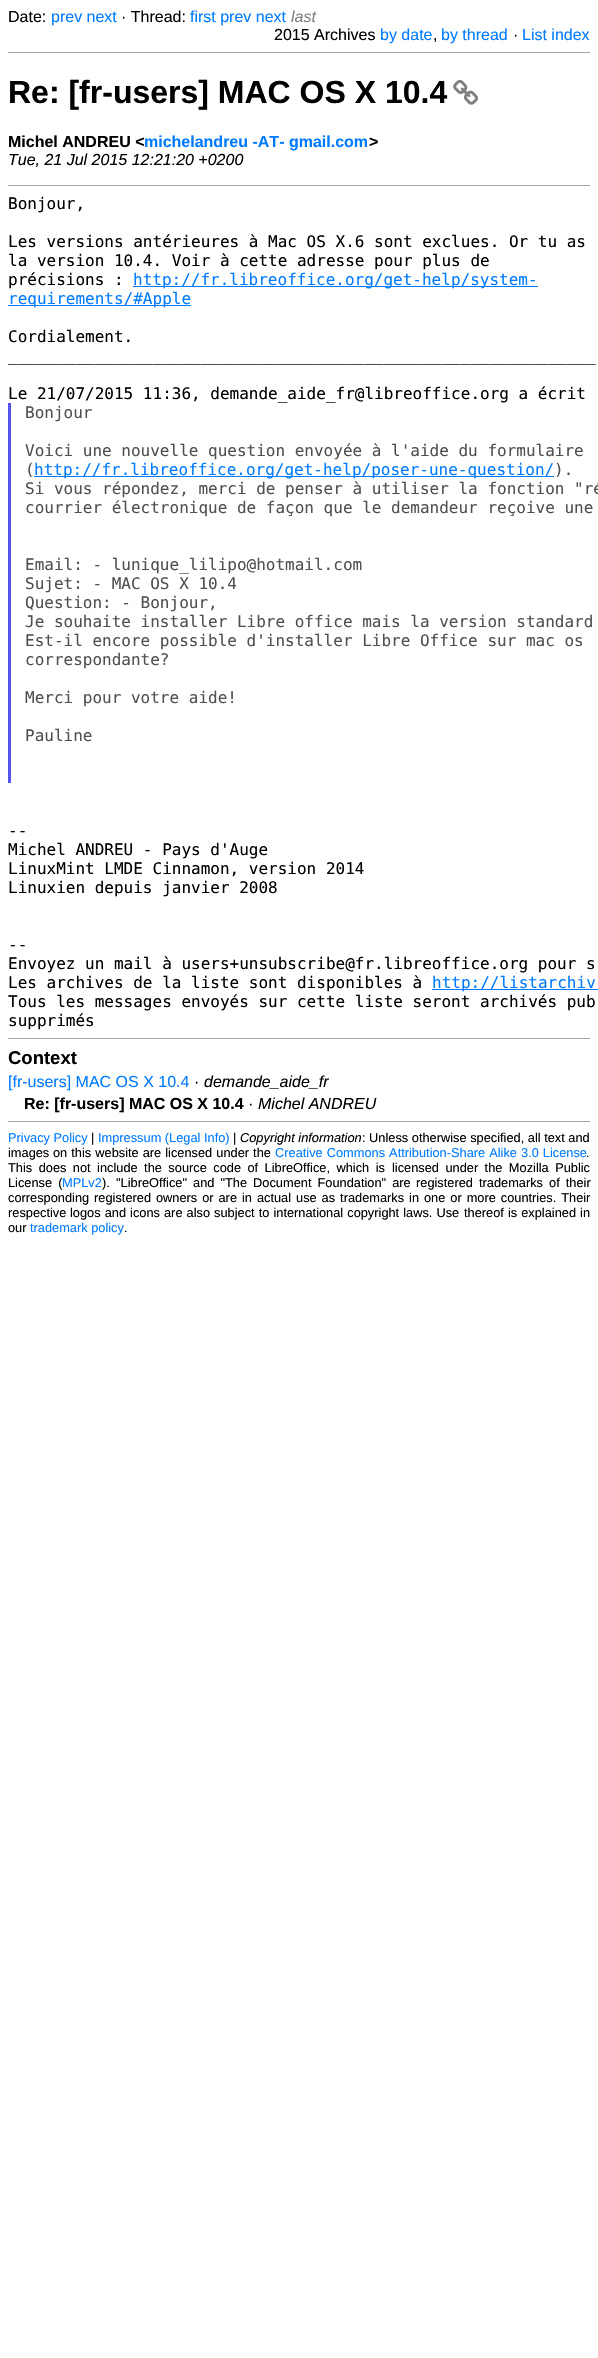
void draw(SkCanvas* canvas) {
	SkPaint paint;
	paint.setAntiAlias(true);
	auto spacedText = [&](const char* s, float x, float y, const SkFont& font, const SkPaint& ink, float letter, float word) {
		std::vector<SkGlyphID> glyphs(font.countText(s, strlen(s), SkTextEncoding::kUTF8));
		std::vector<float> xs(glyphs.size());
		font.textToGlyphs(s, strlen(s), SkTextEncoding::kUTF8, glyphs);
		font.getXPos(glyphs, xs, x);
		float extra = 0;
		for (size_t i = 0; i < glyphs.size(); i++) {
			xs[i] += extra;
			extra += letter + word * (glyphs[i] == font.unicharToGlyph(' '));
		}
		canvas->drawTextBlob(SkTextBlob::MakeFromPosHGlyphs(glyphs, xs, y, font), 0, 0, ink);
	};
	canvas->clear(0xffffffff);
	SkFont f1(fontMgr->matchFamilyStyle("Liberation Sans", SkFontStyle::Normal()), 16);
	f1.setSubpixel(true);
	paint.setColor(0xff000000);
	canvas->drawString("Date:", 8, 22, f1, paint);
	paint.setColor(0xff007bff);
	canvas->drawString("prev next", 51, 22, f1, paint);
	paint.setColor(0xff000000);
	canvas->drawString("· Thread:", 121, 22, f1, paint);
	paint.setColor(0xff007bff);
	canvas->drawString("first prev next", 190, 22, f1, paint);
	SkFont f2(fontMgr->matchFamilyStyle("Liberation Sans", SkFontStyle::Italic()), 16);
	f2.setSubpixel(true);
	paint.setColor(0xff808080);
	canvas->drawString("last", 291, 22, f2, paint);
	paint.setColor(0xff000000);
	canvas->drawString("2015 Archives", 274, 40, f1, paint);
	paint.setColor(0xff007bff);
	canvas->drawString("by date", 380, 40, f1, paint);
	canvas->drawString("by thread", 441, 40, f1, paint);
	paint.setColor(0xff000000);
	canvas->drawString("·", 513, 40, f1, paint);
	paint.setColor(0xff007bff);
	canvas->drawString("List index", 522, 40, f1, paint);
	paint.setColor(0xff000000);
	canvas->drawString(",", 433, 40, f1, paint);
	paint.setColor(0xffa6a6a6);
	canvas->drawRect(SkRect::MakeXYWH(8, 52, 582, 1), paint);
	SkFont f3(fontMgr->matchFamilyStyle("Liberation Sans", SkFontStyle::Bold()), 32);
	f3.setSubpixel(true);
	paint.setColor(0xff000000);
	canvas->drawString("Re: [fr-users] MAC OS X 10.4", 8, 103, f3, paint);
	canvas->drawImageRect(SkImages::DeferredFromEncodedData(SkData::MakeFromFileName("img1.png")), SkRect::MakeXYWH(453, 79, 25, 26), SkSamplingOptions());
	SkFont f4(fontMgr->matchFamilyStyle("Liberation Sans", SkFontStyle::Bold()), 16);
	f4.setSubpixel(true);
	canvas->drawString("Michel ANDREU <", 8, 147, f4, paint);
	paint.setColor(0xff007bff);
	canvas->drawString("michelandreu -AT- gmail.com", 144, 147, f4, paint);
	paint.setColor(0xff000000);
	canvas->drawString(">", 369, 147, f4, paint);
	canvas->drawString("Tue, 21 Jul 2015 12:21:20 +0200", 8, 165, f2, paint);
	paint.setColor(0xffa6a6a6);
	canvas->drawRect(SkRect::MakeXYWH(8, 185, 582, 1), paint);
	SkFont f5(fontMgr->matchFamilyStyle("DejaVu Sans Mono", SkFontStyle::Normal()), 16);
	f5.setSubpixel(true);
	paint.setColor(0xff000000);
	canvas->drawString("Bonjour,", 8, 209, f5, paint);
	canvas->drawString("Les versions antérieures à Mac OS X.6 sont exclues. Or tu as", 8, 247, f5, paint);
	canvas->drawString("la version 10.4. Voir à cette adresse pour plus de", 8, 266, f5, paint);
	canvas->drawString("précisions :", 8, 285, f5, paint);
	paint.setColor(0xff007bff);
	canvas->drawRect(SkRect::MakeXYWH(133, 286, 405, 1), paint);
	canvas->drawString("http://fr.libreoffice.org/get-help/system-", 133, 285, f5, paint);
	canvas->drawRect(SkRect::MakeXYWH(8, 305, 183, 1), paint);
	canvas->drawString("requirements/#Apple", 8, 304, f5, paint);
	paint.setColor(0xff000000);
	canvas->drawString("Cordialement.", 8, 342, f5, paint);
	canvas->drawString("_____________________________________________________________", 8, 361, f5, paint);
	canvas->drawString("Le 21/07/2015 11:36, demande_aide_fr@libreoffice.org a écrit", 8, 399, f5, paint);
	paint.setColor(0xff5555ee);
	canvas->drawRect(SkRect::MakeXYWH(8, 403, 3, 380), paint);
	paint.setColor(0xff505050);
	canvas->drawString("Bonjour", 25, 418, f5, paint);
	canvas->drawString("Voici une nouvelle question envoyée à l'aide du formulaire", 25, 456, f5, paint);
	canvas->drawString("(", 25, 475, f5, paint);
	paint.setColor(0xff007bff);
	canvas->drawRect(SkRect::MakeXYWH(34, 476, 520, 1), paint);
	canvas->drawString("http://fr.libreoffice.org/get-help/poser-une-question/", 34, 475, f5, paint);
	paint.setColor(0xff505050);
	canvas->drawString(").", 554, 475, f5, paint);
	canvas->drawString("Si vous répondez, merci de penser à utiliser la fonction \"ré", 25, 494, f5, paint);
	canvas->drawString("courrier électronique de façon que le demandeur reçoive une", 25, 513, f5, paint);
	canvas->drawString("Email: - lunique_lilipo@hotmail.com", 25, 570, f5, paint);
	canvas->drawString("Sujet: - MAC OS X 10.4", 25, 589, f5, paint);
	canvas->drawString("Question: - Bonjour,", 25, 608, f5, paint);
	canvas->drawString("Je souhaite installer Libre office mais la version standard", 25, 627, f5, paint);
	canvas->drawString("Est-il encore possible d'installer Libre Office sur mac os", 25, 646, f5, paint);
	canvas->drawString("correspondante?", 25, 665, f5, paint);
	canvas->drawString("Merci pour votre aide!", 25, 703, f5, paint);
	canvas->drawString("Pauline", 25, 741, f5, paint);
	paint.setColor(0xff000000);
	canvas->drawString("--", 8, 836, f5, paint);
	canvas->drawString("Michel ANDREU - Pays d'Auge", 8, 855, f5, paint);
	canvas->drawString("LinuxMint LMDE Cinnamon, version 2014", 8, 874, f5, paint);
	canvas->drawString("Linuxien depuis janvier 2008", 8, 893, f5, paint);
	canvas->drawString("--", 8, 950, f5, paint);
	canvas->drawString("Envoyez un mail à users+unsubscribe@fr.libreoffice.org pour s", 8, 969, f5, paint);
	canvas->drawString("Les archives de la liste sont disponibles à", 8, 988, f5, paint);
	paint.setColor(0xff007bff);
	canvas->drawRect(SkRect::MakeXYWH(432, 989, 166, 1), paint);
	canvas->drawString("http://listarchiv", 432, 988, f5, paint);
	paint.setColor(0xff000000);
	canvas->drawString("Tous les messages envoyés sur cette liste seront archivés pub", 8, 1007, f5, paint);
	canvas->drawString("supprimés", 8, 1026, f5, paint);
	paint.setColor(0xffa6a6a6);
	canvas->drawRect(SkRect::MakeXYWH(8, 1038, 582, 1), paint);
	SkFont f6(fontMgr->matchFamilyStyle("Liberation Sans", SkFontStyle::Bold()), 18.5);
	f6.setSubpixel(true);
	paint.setColor(0xff000000);
	canvas->drawString("Context", 8, 1064, f6, paint);
	paint.setColor(0xff007bff);
	canvas->drawString("[fr-users] MAC OS X 10.4", 8, 1087, f1, paint);
	paint.setColor(0xff000000);
	canvas->drawString("·", 194, 1087, f1, paint);
	canvas->drawString("demande_aide_fr", 204, 1087, f2, paint);
	canvas->drawString("Re: [fr-users] MAC OS X 10.4", 24, 1109, f4, paint);
	canvas->drawString("·", 248, 1109, f1, paint);
	canvas->drawString("Michel ANDREU", 258, 1109, f2, paint);
	paint.setColor(0xffa6a6a6);
	canvas->drawRect(SkRect::MakeXYWH(8, 1121, 582, 1), paint);
	SkFont f7(fontMgr->matchFamilyStyle("Liberation Sans", SkFontStyle::Normal()), 12.8);
	f7.setSubpixel(true);
	paint.setColor(0xff007bff);
	canvas->drawString("Privacy Policy", 8, 1142, f7, paint);
	paint.setColor(0xff000000);
	canvas->drawString("|", 91, 1142, f7, paint);
	paint.setColor(0xff007bff);
	canvas->drawString("Impressum (Legal Info)", 98, 1142, f7, paint);
	paint.setColor(0xff000000);
	canvas->drawString("|", 233, 1142, f7, paint);
	SkFont f8(fontMgr->matchFamilyStyle("Liberation Sans", SkFontStyle::Italic()), 12.8);
	f8.setSubpixel(true);
	canvas->drawString("Copyright information", 240, 1142, f8, paint);
	canvas->drawString(": Unless otherwise specified, all text and", 362, 1142, f7, paint);
	canvas->drawString("images", 8, 1157, f7, paint);
	spacedText("on this website are licensed under the", 53, 1157, f7, paint, 0, 0.5);
	paint.setColor(0xff007bff);
	spacedText("Creative Commons Attribution-Share Alike 3.0 License", 275, 1157, f7, paint, 0, 0.5);
	paint.setColor(0xff000000);
	canvas->drawString(".", 586, 1157, f7, paint);
	spacedText("This does not include the source code of LibreOffice, which is", 8, 1172, f7, paint, 0, 2.9);
	spacedText("licensed under the Mozilla Public", 392, 1172, f7, paint, 0, 2.9);
	spacedText("License (", 8, 1187, f7, paint, 0, 2.5);
	paint.setColor(0xff007bff);
	canvas->drawString("MPLv2", 62, 1187, f7, paint);
	paint.setColor(0xff000000);
	canvas->drawString(").", 102, 1187, f7, paint);
	spacedText("\"LibreOffice\" and \"The Document Foundation\" are", 116, 1187, f7, paint, 0, 2.5);
	spacedText("registered trademarks of their", 416, 1187, f7, paint, 0, 2.5);
	spacedText("corresponding registered owners or are", 8, 1202, f7, paint, 0, 1.4);
	spacedText("in actual use as trademarks in one or more countries. Their", 242, 1202, f7, paint, 0, 1.4);
	canvas->drawString("respective", 8, 1217, f7, paint);
	spacedText("logos and icons are also subject to international copyright laws. Use", 70, 1217, f7, paint, 0, 0.5);
	spacedText("thereof is explained in", 464, 1217, f7, paint, 0, 0.5);
	canvas->drawString("our", 8, 1232, f7, paint);
	paint.setColor(0xff007bff);
	canvas->drawString("trademark policy", 30, 1232, f7, paint);
	paint.setColor(0xff000000);
	canvas->drawString(".", 124, 1232, f7, paint);
}
